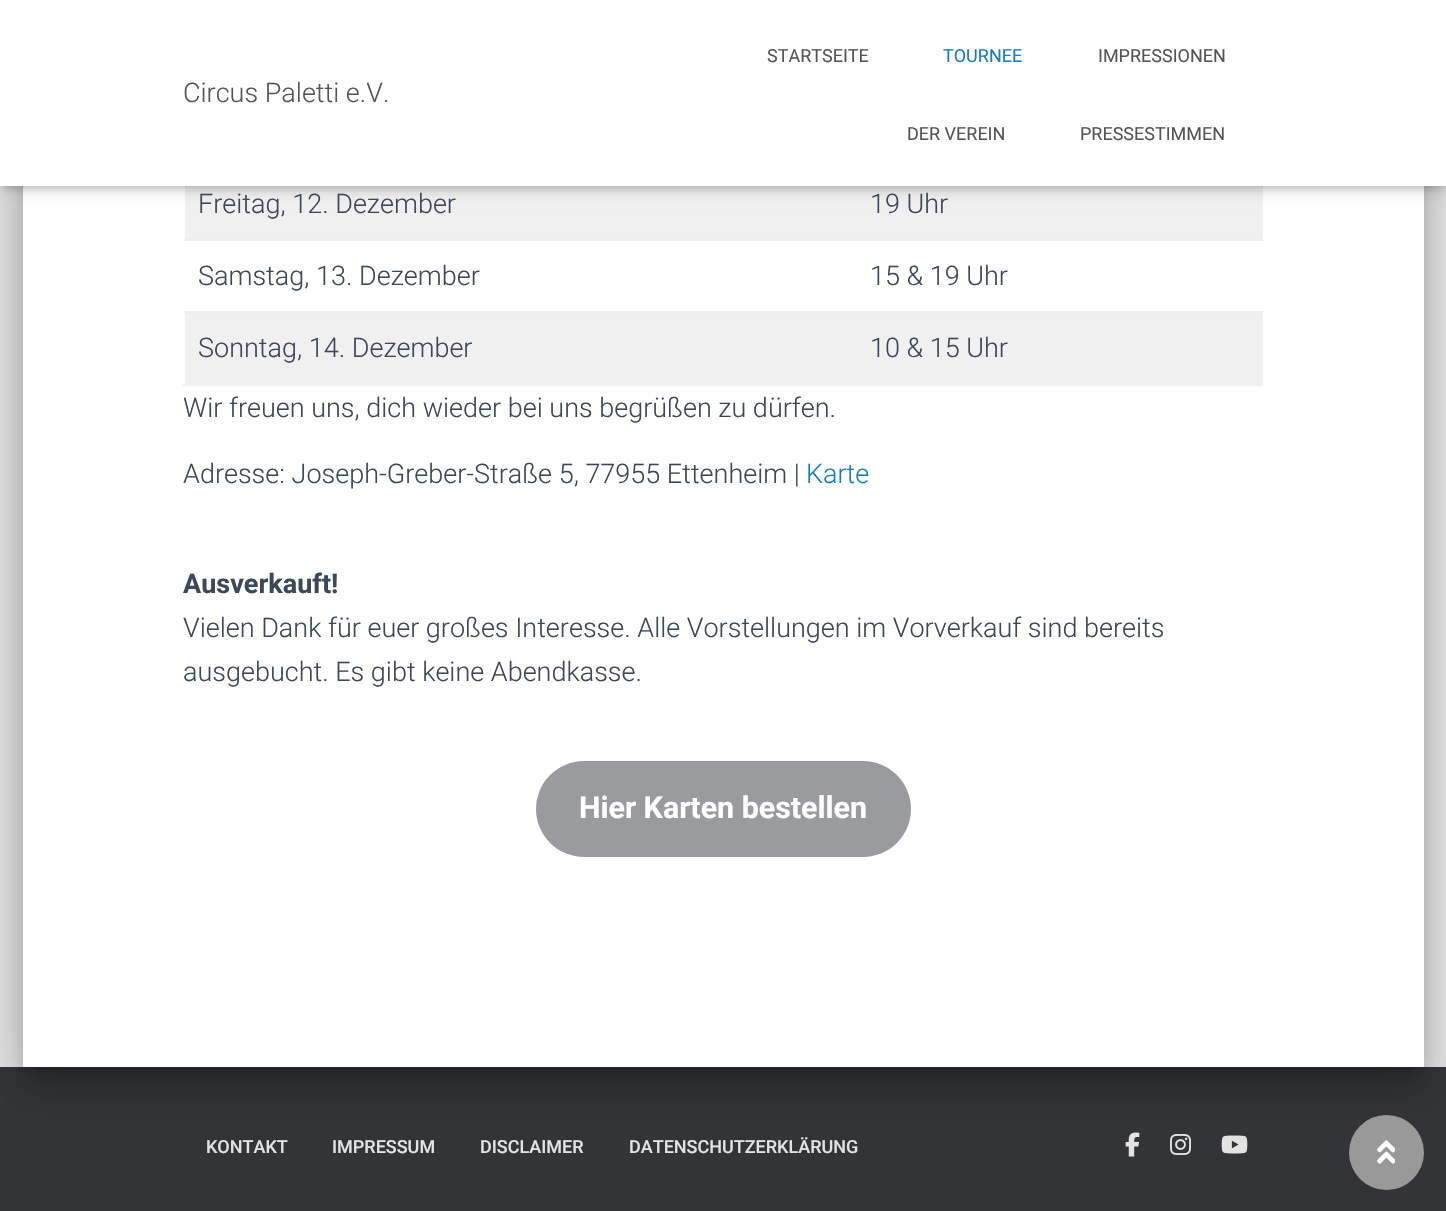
void draw(SkCanvas* canvas) {
	SkPaint paint;
	paint.setAntiAlias(true);
	canvas->clear(0xffe5e5e5);
	paint.setColor(0xff323437);
	canvas->drawRect(SkRect::MakeXYWH(0, 1067, 1446, 144), paint);
	paint.setColor(0x33000000);
	paint.setMaskFilter(SkMaskFilter::MakeBlur(kNormal_SkBlurStyle, 7.5));
	canvas->drawRoundRect(SkRect::MakeXYWH(30, -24, 1386, 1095), 1.5, 1.5, paint);
	paint.setMaskFilter(nullptr);
	paint.setColor(0x1f000000);
	paint.setMaskFilter(SkMaskFilter::MakeBlur(kNormal_SkBlurStyle, 22.5));
	canvas->drawRoundRect(SkRect::MakeXYWH(15, -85, 1416, 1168), 17, 17, paint);
	paint.setMaskFilter(nullptr);
	paint.setColor(0x24000000);
	paint.setMaskFilter(SkMaskFilter::MakeBlur(kNormal_SkBlurStyle, 18));
	canvas->drawRoundRect(SkRect::MakeXYWH(20, -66, 1407, 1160), 12, 12, paint);
	paint.setMaskFilter(nullptr);
	paint.setColor(0xffffffff);
	canvas->drawRect(SkRect::MakeXYWH(23, 186, 1401, 881), paint);
	paint.setColor(0xfff0f0f0);
	canvas->drawRect(SkRect::MakeXYWH(185, 186, 1078, 53), paint);
	paint.setColor(0x1a000000);
	paint.setMaskFilter(SkMaskFilter::MakeBlur(kNormal_SkBlurStyle, 4));
	canvas->drawRect(SkRect::MakeXYWH(3, 9, 1440, 180), paint);
	paint.setMaskFilter(nullptr);
	paint.setColor(0x1f000000);
	paint.setMaskFilter(SkMaskFilter::MakeBlur(kNormal_SkBlurStyle, 7.5));
	canvas->drawRect(SkRect::MakeXYWH(0, 2, 1446, 186), paint);
	paint.setMaskFilter(nullptr);
	paint.setColor(0x6b000000);
	paint.setMaskFilter(SkMaskFilter::MakeBlur(kNormal_SkBlurStyle, 7.5));
	canvas->drawRect(SkRect::MakeXYWH(9, 11, 1428, 168), paint);
	paint.setMaskFilter(nullptr);
	paint.setColor(0xffffffff);
	canvas->drawRect(SkRect::MakeXYWH(0, 0, 1446, 186), paint);
	SkFont f1(fontMgr->matchFamilyStyle("Roboto", SkFontStyle(300, SkFontStyle::kNormal_Width, SkFontStyle::kUpright_Slant)), 27);
	f1.setSubpixel(true);
	paint.setColor(0xff555555);
	canvas->drawString("Circus Paletti e.V.", 183, 102, f1, paint);
	SkFont f2(fontMgr->matchFamilyStyle("Roboto", SkFontStyle::Normal()), 18);
	f2.setSubpixel(true);
	canvas->drawString("STARTSEITE", 767, 62, f2, paint);
	paint.setColor(0xff197bc6);
	canvas->drawString("TOURNEE", 943, 62, f2, paint);
	paint.setColor(0xff555555);
	canvas->drawString("IMPRESSIONEN", 1098, 62, f2, paint);
	canvas->drawString("DER VEREIN", 907, 140, f2, paint);
	canvas->drawString("PRESSESTIMMEN", 1080, 140, f2, paint);
	paint.setColor(0xfff0f0f0);
	canvas->drawRect(SkRect::MakeXYWH(183, 384, 1080, 2), paint);
	paint.setColor(0xffeeeeee);
	canvas->drawRect(SkRect::MakeXYWH(183, 239, 1080, 2), paint);
	paint.setColor(0xff3c4858);
	canvas->drawString("Freitag, 12. Dezember", 198, 213, f1, paint);
	canvas->drawString("19 Uhr", 870, 213, f1, paint);
	paint.setColor(0xffeeeeee);
	canvas->drawRect(SkRect::MakeXYWH(183, 311, 1080, 2), paint);
	paint.setColor(0xff3c4858);
	canvas->drawString("Samstag, 13. Dezember", 198, 285, f1, paint);
	canvas->drawString("15 & 19 Uhr", 870, 285, f1, paint);
	paint.setColor(0xfff0f0f0);
	canvas->drawRect(SkRect::MakeXYWH(185, 313, 1078, 71), paint);
	paint.setColor(0xff3c4858);
	canvas->drawString("Sonntag, 14. Dezember", 198, 357, f1, paint);
	canvas->drawString("10 & 15 Uhr", 870, 357, f1, paint);
	canvas->drawString("Wir freuen uns, dich wieder bei uns begrüßen zu dürfen.", 183, 417, f1, paint);
	canvas->drawString("Adresse: Joseph-Greber-Straße 5, 77955 Ettenheim |", 183, 483, f1, paint);
	paint.setColor(0xff197bc6);
	canvas->drawString("Karte", 806, 483, f1, paint);
	SkFont f3(fontMgr->matchFamilyStyle("Roboto", SkFontStyle::Bold()), 27);
	f3.setSubpixel(true);
	paint.setColor(0xff3c4858);
	canvas->drawString("Ausverkauft!", 183, 593, f3, paint);
	canvas->drawString("Vielen Dank für euer großes Interesse. Alle Vorstellungen im Vorverkauf sind bereits", 183, 637, f1, paint);
	canvas->drawString("ausgebucht. Es gibt keine Abendkasse.", 183, 681, f1, paint);
	paint.setColor(0xff999b9e);
	canvas->drawRoundRect(SkRect::MakeXYWH(536, 761, 375, 96), 48, 48, paint);
	SkFont f4(fontMgr->matchFamilyStyle("Roboto", SkFontStyle::Bold()), 30.4);
	f4.setSubpixel(true);
	paint.setColor(0xffffffff);
	canvas->drawString("Hier Karten bestellen", 579, 818, f4, paint);
	SkFont f5(fontMgr->matchFamilyStyle("Roboto", SkFontStyle(500, SkFontStyle::kNormal_Width, SkFontStyle::kUpright_Slant)), 18);
	f5.setSubpixel(true);
	paint.setColor(0xffe2e3e3);
	canvas->drawString("KONTAKT", 206, 1153, f5, paint);
	canvas->drawString("IMPRESSUM", 332, 1153, f5, paint);
	canvas->drawString("DISCLAIMER", 480, 1153, f5, paint);
	canvas->drawString("DATENSCHUTZERKLÄRUNG", 629, 1153, f5, paint);
	canvas->drawImageRect(SkImages::DeferredFromEncodedData(SkData::MakeFromFileName("img1.png")), SkRect::MakeXYWH(1125, 1132, 15, 25), SkSamplingOptions());
	canvas->drawImageRect(SkImages::DeferredFromEncodedData(SkData::MakeFromFileName("img2.png")), SkRect::MakeXYWH(1170, 1134, 21, 21), SkSamplingOptions());
	canvas->drawImageRect(SkImages::DeferredFromEncodedData(SkData::MakeFromFileName("img3.png")), SkRect::MakeXYWH(1221, 1135, 27, 19), SkSamplingOptions());
	paint.setColor(0xff999999);
	canvas->drawCircle(1386.5, 1152.5, 37.5, paint);
	canvas->drawImageRect(SkImages::DeferredFromEncodedData(SkData::MakeFromFileName("img4.png")), SkRect::MakeXYWH(1377, 1140, 18, 24), SkSamplingOptions());
}
